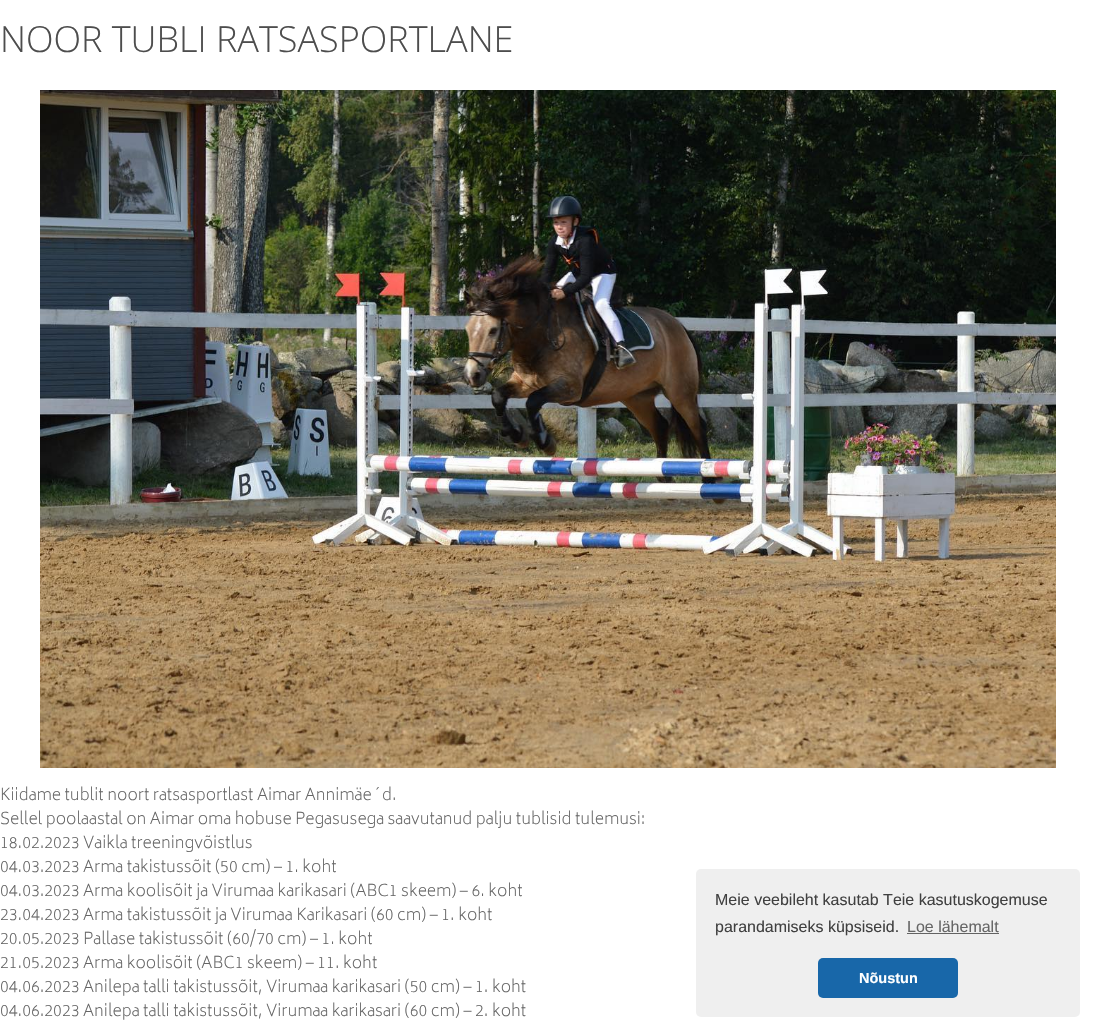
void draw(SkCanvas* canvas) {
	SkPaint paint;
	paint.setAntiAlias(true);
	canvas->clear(0xffffffff);
	SkFont f1(fontMgr->matchFamilyStyle("Open Sans", SkFontStyle(300, SkFontStyle::kNormal_Width, SkFontStyle::kUpright_Slant)), 36);
	f1.setSubpixel(true);
	paint.setColor(0xff4d4d4d);
	canvas->drawString("NOOR TUBLI RATSASPORTLANE", 0, 52, f1, paint);
	canvas->drawImageRect(SkImages::DeferredFromEncodedData(SkData::MakeFromFileName("img1.png")), SkRect::MakeXYWH(40, 90, 1016, 678), SkSamplingOptions());
	SkFont f2(fontMgr->matchFamilyStyle("Biryani", SkFontStyle(200, SkFontStyle::kNormal_Width, SkFontStyle::kUpright_Slant)), 16);
	f2.setSubpixel(true);
	paint.setColor(0xff666666);
	canvas->drawString("Kiidame tublit noort ratsasportlast Aimar Annimäe´d.", 0, 800, f2, paint);
	canvas->drawString("Sellel poolaastal on Aimar oma hobuse Pegasusega saavutanud palju tublisid tulemusi:", 0, 824, f2, paint);
	canvas->drawString("18.02.2023 Vaikla treeningvõistlus", 0, 848, f2, paint);
	canvas->drawString("04.03.2023 Arma takistussõit (50 cm) – 1. koht", 0, 872, f2, paint);
	canvas->drawString("04.03.2023 Arma koolisõit ja Virumaa karikasari (ABC1 skeem) – 6. koht", 0, 896, f2, paint);
	canvas->drawString("23.04.2023 Arma takistussõit ja Virumaa Karikasari (60 cm) – 1. koht", 0, 920, f2, paint);
	canvas->drawString("20.05.2023 Pallase takistussõit (60/70 cm) – 1. koht", 0, 944, f2, paint);
	canvas->drawString("21.05.2023 Arma koolisõit (ABC1 skeem) – 11. koht", 0, 968, f2, paint);
	canvas->drawString("04.06.2023 Anilepa talli takistussõit, Virumaa karikasari (50 cm) – 1. koht", 0, 992, f2, paint);
	canvas->drawString("04.06.2023 Anilepa talli takistussõit, Virumaa karikasari (60 cm) – 2. koht", 0, 1016, f2, paint);
	paint.setColor(0xffefefef);
	canvas->drawRoundRect(SkRect::MakeXYWH(696, 869, 384, 148), 5, 5, paint);
	SkFont f3(fontMgr->matchFamilyStyle("Liberation Sans", SkFontStyle::Normal()), 16);
	f3.setSubpixel(true);
	paint.setColor(0xff404040);
	canvas->drawString("Meie veebileht kasutab Teie kasutuskogemuse", 715, 905, f3, paint);
	canvas->drawString("parandamiseks küpsiseid.", 715, 932, f3, paint);
	paint.setColor(0xff666666);
	canvas->drawString("Loe lähemalt", 907, 932, f3, paint);
	paint.setColor(0xff636363);
	canvas->drawRect(SkRect::MakeXYWH(907, 933, 92, 1), paint);
	paint.setColor(0xff1867a9);
	canvas->drawRoundRect(SkRect::MakeXYWH(818, 958, 140, 40), 5, 5, paint);
	SkFont f4(fontMgr->matchFamilyStyle("Liberation Sans", SkFontStyle::Bold()), 14.5);
	f4.setSubpixel(true);
	paint.setColor(0xffffffff);
	canvas->drawString("Nõustun", 859, 983, f4, paint);
}
